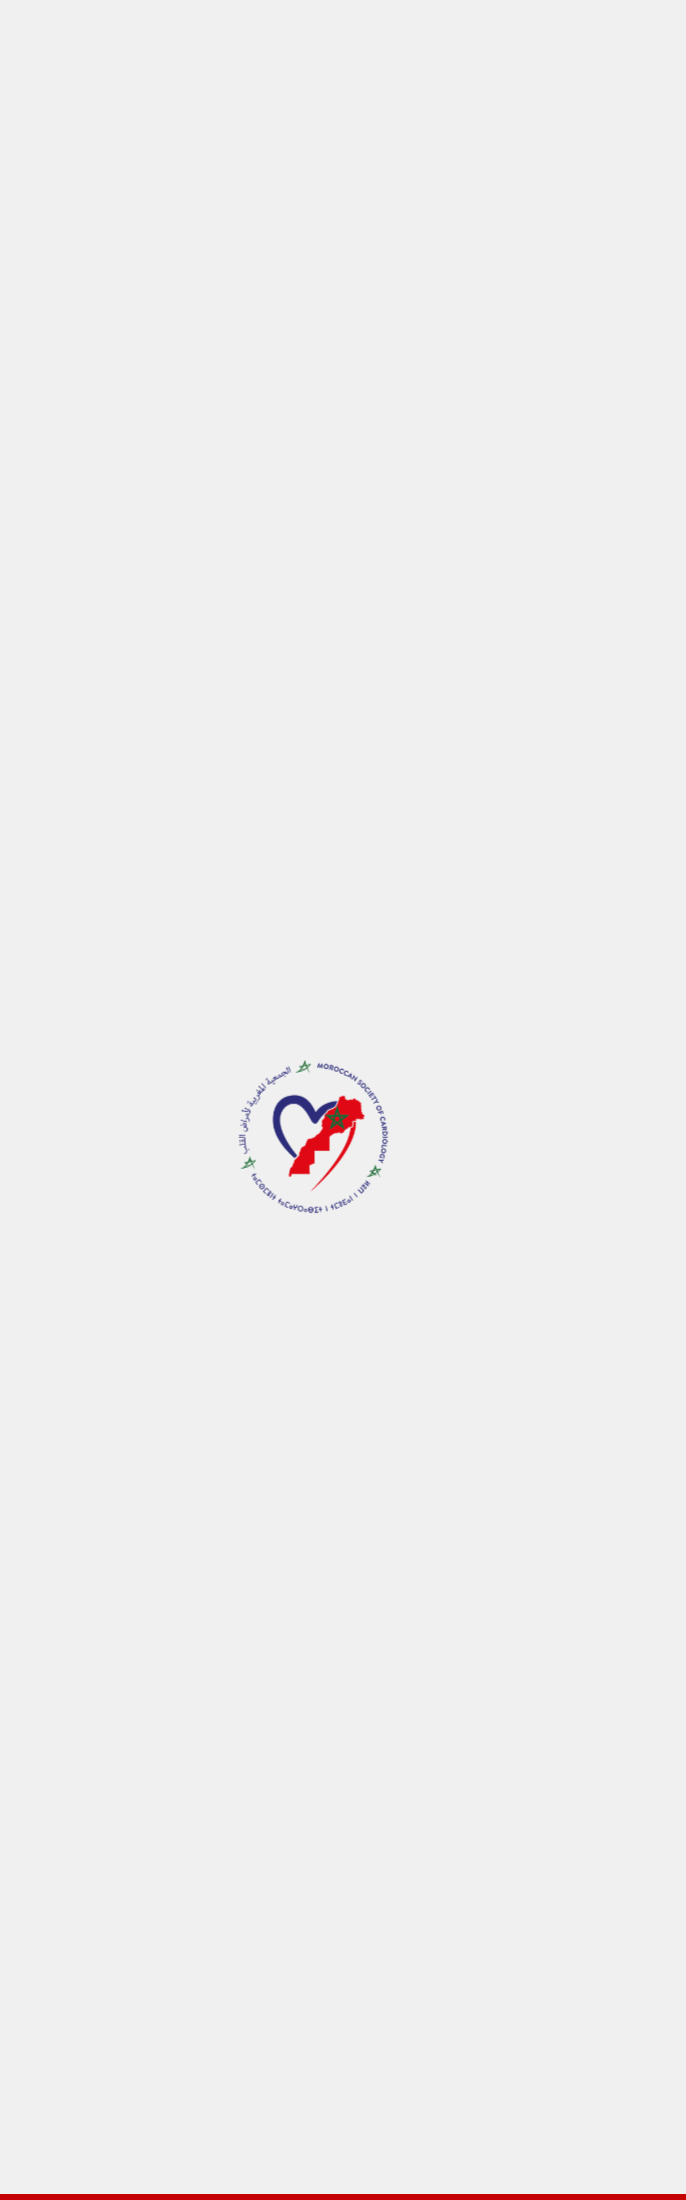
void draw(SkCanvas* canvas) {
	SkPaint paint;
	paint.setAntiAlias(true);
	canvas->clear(0xfff0f0f0);
	canvas->drawImageRect(SkImages::DeferredFromEncodedData(SkData::MakeFromFileName("img1.png")), SkRect::MakeXYWH(238, 1060, 151, 154), SkSamplingOptions());
	paint.setColor(0xffc60000);
	canvas->drawRect(SkRect::MakeXYWH(0, 2194, 686, 6), paint);
}
